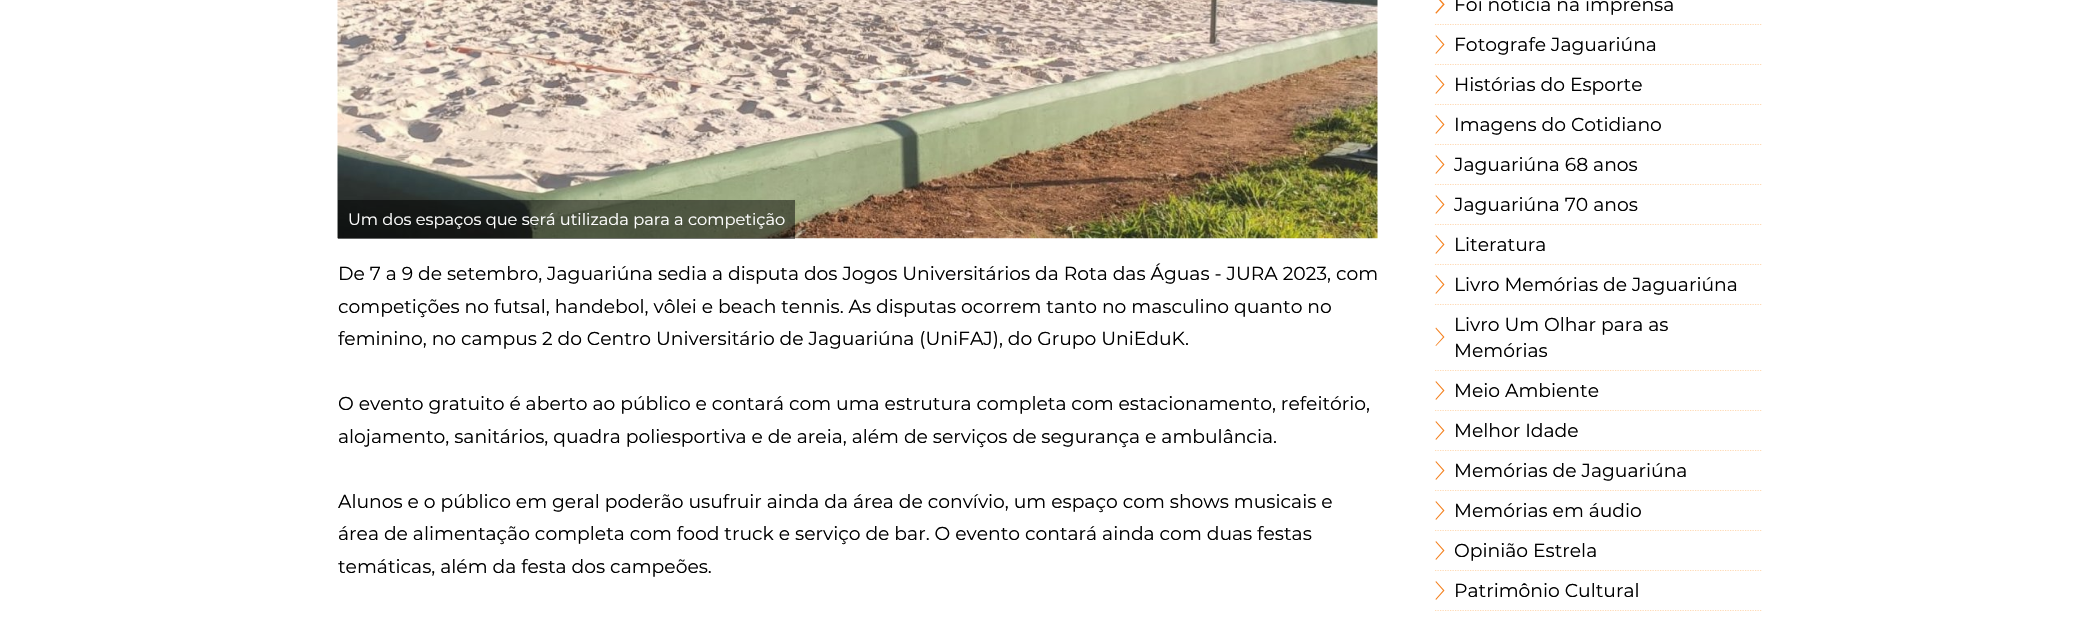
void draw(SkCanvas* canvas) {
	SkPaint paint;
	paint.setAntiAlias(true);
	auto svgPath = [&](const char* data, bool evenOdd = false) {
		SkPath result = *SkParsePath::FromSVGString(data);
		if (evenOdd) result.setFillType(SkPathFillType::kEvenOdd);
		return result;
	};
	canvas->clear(0xffffffff);
	canvas->drawImageRect(SkImages::DeferredFromEncodedData(SkData::MakeFromFileName("img1.png")), SkRect::MakeXYWH(337, 0, 1041, 239), SkSamplingOptions());
	paint.setColor(0x80000000);
	canvas->drawRect(SkRect::MakeXYWH(338, 200, 457, 39), paint);
	SkFont f1(fontMgr->matchFamilyStyle("Montserrat", SkFontStyle::Normal()), 16.25);
	f1.setSubpixel(true);
	paint.setColor(0xffffffff);
	canvas->drawString("Um dos espaços que será utilizada para a competição", 348, 225, f1, paint);
	SkFont f2(fontMgr->matchFamilyStyle("Montserrat", SkFontStyle::Normal()), 18.75);
	f2.setSubpixel(true);
	paint.setColor(0xff000000);
	canvas->drawString("De 7 a 9 de setembro, Jaguariúna sedia a disputa dos Jogos Universitários da Rota das Águas - JURA 2023, com", 338, 280, f2, paint);
	canvas->drawString("competições no futsal, handebol, vôlei e beach tennis. As disputas ocorrem tanto no masculino quanto no", 338, 313, f2, paint);
	canvas->drawString("feminino, no campus 2 do Centro Universitário de Jaguariúna (UniFAJ), do Grupo UniEduK.", 338, 345, f2, paint);
	canvas->drawString("O evento gratuito é aberto ao público e contará com uma estrutura completa com estacionamento, refeitório,", 338, 410, f2, paint);
	canvas->drawString("alojamento, sanitários, quadra poliesportiva e de areia, além de serviços de segurança e ambulância.", 338, 443, f2, paint);
	canvas->drawString("Alunos e o público em geral poderão usufruir ainda da área de convívio, um espaço com shows musicais e", 338, 508, f2, paint);
	canvas->drawString("área de alimentação completa com food truck e serviço de bar. O evento contará ainda com duas festas", 338, 540, f2, paint);
	canvas->drawString("temáticas, além da festa dos campeões.", 338, 573, f2, paint);
	canvas->drawImageRect(SkImages::DeferredFromEncodedData(SkData::MakeFromFileName("img2.png")), SkRect::MakeXYWH(1435, 0, 10, 14), SkSamplingOptions());
	paint.setStroke(true);
	paint.setStrokeWidth(1.2);
	paint.setColor(0xffffdab4);
	paint.setPathEffect(SkDashPathEffect::Make({{1.25f, 1.25f}}, 0));
	canvas->drawPath(svgPath("M1435 24.5H1762.5"), paint);
	paint.setPathEffect(nullptr);
	paint.setStroke(false);
	paint.setColor(0xff000000);
	canvas->drawString("Foi notícia na imprensa", 1454, 11, f2, paint);
	paint.setColor(0xfff58220);
	canvas->drawPath(svgPath("M1436 35L1444.5 44.5L1436 54L1435.5 53L1443 44.5L1435.5 36Z"), paint);
	paint.setStroke(true);
	paint.setColor(0xffffdab4);
	paint.setPathEffect(SkDashPathEffect::Make({{1.25f, 1.25f}}, 0));
	canvas->drawPath(svgPath("M1435 64.5H1762.5"), paint);
	paint.setPathEffect(nullptr);
	paint.setStroke(false);
	paint.setColor(0xff000000);
	canvas->drawString("Fotografe Jaguariúna", 1454, 51, f2, paint);
	paint.setColor(0xfff58220);
	canvas->drawPath(svgPath("M1436 75L1444.5 84.5L1436 94L1435.5 93L1443 84.5L1435.5 76Z"), paint);
	paint.setStroke(true);
	paint.setColor(0xffffdab4);
	paint.setPathEffect(SkDashPathEffect::Make({{1.25f, 1.25f}}, 0));
	canvas->drawPath(svgPath("M1435 104.5H1762.5"), paint);
	paint.setPathEffect(nullptr);
	paint.setStroke(false);
	paint.setColor(0xff000000);
	canvas->drawString("Histórias do Esporte", 1454, 91, f2, paint);
	paint.setColor(0xfff58220);
	canvas->drawPath(svgPath("M1436 115L1444.5 124.5L1436 134L1435.5 133L1443 124.5L1435.5 116Z"), paint);
	paint.setStroke(true);
	paint.setColor(0xffffdab4);
	paint.setPathEffect(SkDashPathEffect::Make({{1.25f, 1.25f}}, 0));
	canvas->drawPath(svgPath("M1435 144.5H1762.5"), paint);
	paint.setPathEffect(nullptr);
	paint.setStroke(false);
	paint.setColor(0xff000000);
	canvas->drawString("Imagens do Cotidiano", 1454, 131, f2, paint);
	paint.setColor(0xfff58220);
	canvas->drawPath(svgPath("M1436 155L1444.5 164.5L1436 174L1435.5 173L1443 164.5L1435.5 156Z"), paint);
	paint.setStroke(true);
	paint.setColor(0xffffdab4);
	paint.setPathEffect(SkDashPathEffect::Make({{1.25f, 1.25f}}, 0));
	canvas->drawPath(svgPath("M1435 184.5H1762.5"), paint);
	paint.setPathEffect(nullptr);
	paint.setStroke(false);
	paint.setColor(0xff000000);
	canvas->drawString("Jaguariúna 68 anos", 1454, 171, f2, paint);
	paint.setColor(0xfff58220);
	canvas->drawPath(svgPath("M1436 195L1444.5 204.5L1436 214L1435.5 213L1443 204.5L1435.5 196Z"), paint);
	paint.setStroke(true);
	paint.setColor(0xffffdab4);
	paint.setPathEffect(SkDashPathEffect::Make({{1.25f, 1.25f}}, 0));
	canvas->drawPath(svgPath("M1435 224.5H1762.5"), paint);
	paint.setPathEffect(nullptr);
	paint.setStroke(false);
	paint.setColor(0xff000000);
	canvas->drawString("Jaguariúna 70 anos", 1454, 211, f2, paint);
	paint.setColor(0xfff58220);
	canvas->drawPath(svgPath("M1436 235L1444.5 244.5L1436 254L1435.5 253L1443 244.5L1435.5 236Z"), paint);
	paint.setStroke(true);
	paint.setColor(0xffffdab4);
	paint.setPathEffect(SkDashPathEffect::Make({{1.25f, 1.25f}}, 0));
	canvas->drawPath(svgPath("M1435 264.5H1762.5"), paint);
	paint.setPathEffect(nullptr);
	paint.setStroke(false);
	paint.setColor(0xff000000);
	canvas->drawString("Literatura", 1454, 251, f2, paint);
	paint.setColor(0xfff58220);
	canvas->drawPath(svgPath("M1436 275L1444.5 284.5L1436 294L1435.5 293L1443 284.5L1435.5 276Z"), paint);
	paint.setStroke(true);
	paint.setColor(0xffffdab4);
	paint.setPathEffect(SkDashPathEffect::Make({{1.25f, 1.25f}}, 0));
	canvas->drawPath(svgPath("M1435 304.5H1762.5"), paint);
	paint.setPathEffect(nullptr);
	paint.setStroke(false);
	paint.setColor(0xff000000);
	canvas->drawString("Livro Memórias de Jaguariúna", 1454, 291, f2, paint);
	paint.setColor(0xfff58220);
	canvas->drawPath(svgPath("M1436 327.5L1444.5 337L1436 346L1435.5 345.5L1443 337L1435.5 328.5Z"), paint);
	paint.setStroke(true);
	paint.setColor(0xffffdab4);
	paint.setPathEffect(SkDashPathEffect::Make({{1.25f, 1.25f}}, 0));
	canvas->drawPath(svgPath("M1435 370.5H1762.5"), paint);
	paint.setPathEffect(nullptr);
	paint.setStroke(false);
	paint.setColor(0xff000000);
	canvas->drawString("Livro Um Olhar para as", 1454, 331, f2, paint);
	canvas->drawString("Memórias", 1454, 357, f2, paint);
	paint.setColor(0xfff58220);
	canvas->drawPath(svgPath("M1436 381L1444.5 390.5L1436 400L1435.5 399L1443 390.5L1435.5 382Z"), paint);
	paint.setStroke(true);
	paint.setColor(0xffffdab4);
	paint.setPathEffect(SkDashPathEffect::Make({{1.25f, 1.25f}}, 0));
	canvas->drawPath(svgPath("M1435 410.5H1762.5"), paint);
	paint.setPathEffect(nullptr);
	paint.setStroke(false);
	paint.setColor(0xff000000);
	canvas->drawString("Meio Ambiente", 1454, 397, f2, paint);
	paint.setColor(0xfff58220);
	canvas->drawPath(svgPath("M1436 421L1444.5 430.5L1436 440L1435.5 439L1443 430.5L1435.5 422Z"), paint);
	paint.setStroke(true);
	paint.setColor(0xffffdab4);
	paint.setPathEffect(SkDashPathEffect::Make({{1.25f, 1.25f}}, 0));
	canvas->drawPath(svgPath("M1435 450.5H1762.5"), paint);
	paint.setPathEffect(nullptr);
	paint.setStroke(false);
	paint.setColor(0xff000000);
	canvas->drawString("Melhor Idade", 1454, 437, f2, paint);
	paint.setColor(0xfff58220);
	canvas->drawPath(svgPath("M1436 461L1444.5 470.5L1436 480L1435.5 479L1443 470.5L1435.5 462Z"), paint);
	paint.setStroke(true);
	paint.setColor(0xffffdab4);
	paint.setPathEffect(SkDashPathEffect::Make({{1.25f, 1.25f}}, 0));
	canvas->drawPath(svgPath("M1435 490.5H1762.5"), paint);
	paint.setPathEffect(nullptr);
	paint.setStroke(false);
	paint.setColor(0xff000000);
	canvas->drawString("Memórias de Jaguariúna", 1454, 477, f2, paint);
	paint.setColor(0xfff58220);
	canvas->drawPath(svgPath("M1436 501L1444.5 510.5L1436 520L1435.5 519L1443 510.5L1435.5 502Z"), paint);
	paint.setStroke(true);
	paint.setColor(0xffffdab4);
	paint.setPathEffect(SkDashPathEffect::Make({{1.25f, 1.25f}}, 0));
	canvas->drawPath(svgPath("M1435 530.5H1762.5"), paint);
	paint.setPathEffect(nullptr);
	paint.setStroke(false);
	paint.setColor(0xff000000);
	canvas->drawString("Memórias em áudio", 1454, 517, f2, paint);
	paint.setColor(0xfff58220);
	canvas->drawPath(svgPath("M1436 541L1444.5 550.5L1436 560L1435.5 559L1443 550.5L1435.5 542Z"), paint);
	paint.setStroke(true);
	paint.setColor(0xffffdab4);
	paint.setPathEffect(SkDashPathEffect::Make({{1.25f, 1.25f}}, 0));
	canvas->drawPath(svgPath("M1435 570.5H1762.5"), paint);
	paint.setPathEffect(nullptr);
	paint.setStroke(false);
	paint.setColor(0xff000000);
	canvas->drawString("Opinião Estrela", 1454, 557, f2, paint);
	paint.setColor(0xfff58220);
	canvas->drawPath(svgPath("M1436 581L1444.5 590.5L1436 600L1435.5 599L1443 590.5L1435.5 582Z"), paint);
	paint.setStroke(true);
	paint.setColor(0xffffdab4);
	paint.setPathEffect(SkDashPathEffect::Make({{1.25f, 1.25f}}, 0));
	canvas->drawPath(svgPath("M1435 610.5H1762.5"), paint);
	paint.setPathEffect(nullptr);
	paint.setStroke(false);
	paint.setColor(0xff000000);
	canvas->drawString("Patrimônio Cultural", 1454, 597, f2, paint);
}
